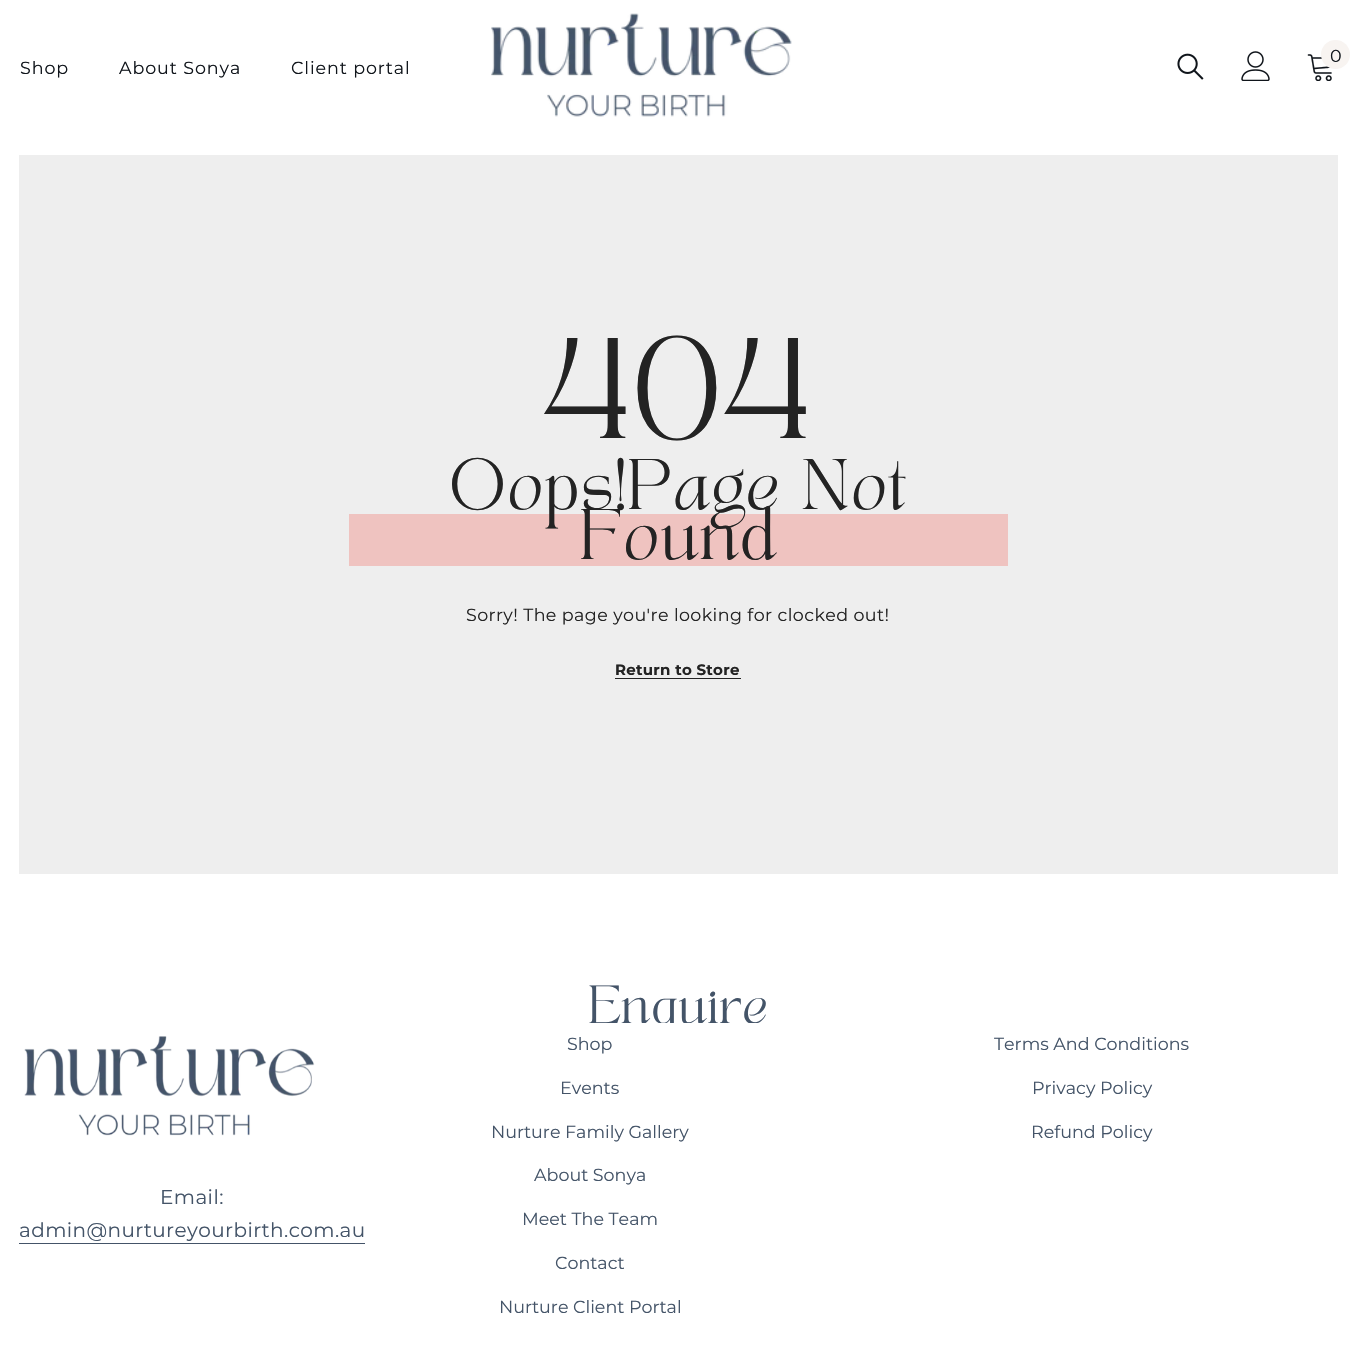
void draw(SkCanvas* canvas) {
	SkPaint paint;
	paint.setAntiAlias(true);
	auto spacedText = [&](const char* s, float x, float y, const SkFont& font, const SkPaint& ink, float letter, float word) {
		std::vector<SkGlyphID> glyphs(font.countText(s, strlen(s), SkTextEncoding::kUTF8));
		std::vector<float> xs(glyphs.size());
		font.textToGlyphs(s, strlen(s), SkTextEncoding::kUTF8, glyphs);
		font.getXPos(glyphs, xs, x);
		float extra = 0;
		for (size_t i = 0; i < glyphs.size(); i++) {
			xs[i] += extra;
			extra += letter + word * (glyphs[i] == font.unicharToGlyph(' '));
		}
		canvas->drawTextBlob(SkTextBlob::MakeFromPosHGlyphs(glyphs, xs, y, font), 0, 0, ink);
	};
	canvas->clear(0xffffffff);
	canvas->drawImageRect(SkImages::DeferredFromEncodedData(SkData::MakeFromFileName("img1.png")), SkRect::MakeXYWH(491, 13, 301, 104), SkSamplingOptions());
	canvas->drawImageRect(SkImages::DeferredFromEncodedData(SkData::MakeFromFileName("img2.png")), SkRect::MakeXYWH(1177, 53, 27, 27), SkSamplingOptions());
	canvas->drawImageRect(SkImages::DeferredFromEncodedData(SkData::MakeFromFileName("img3.png")), SkRect::MakeXYWH(1241, 51, 29, 30), SkSamplingOptions());
	canvas->drawImageRect(SkImages::DeferredFromEncodedData(SkData::MakeFromFileName("img4.png")), SkRect::MakeXYWH(1307, 54, 25, 27), SkSamplingOptions());
	paint.setColor(0xfff8f4f1);
	canvas->drawCircle(1335.5, 54.5, 14.5, paint);
	SkFont f1(fontMgr->matchFamilyStyle("Montserrat", SkFontStyle::Normal()), 17.5);
	f1.setSubpixel(true);
	paint.setColor(0xff10151b);
	canvas->drawString("0", 1330, 62, f1, paint);
	spacedText("Shop", 20, 74, f1, paint, 0.9, 0);
	spacedText("About Sonya", 119, 74, f1, paint, 0.9, 0);
	spacedText("Client portal", 291, 74, f1, paint, 0.9, 0);
	paint.setColor(0xffeeeeee);
	canvas->drawRect(SkRect::MakeXYWH(19, 155, 1319, 719), paint);
	SkFont f2(fontMgr->matchFamilyStyle("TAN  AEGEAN", SkFontStyle::Normal()), 100);
	f2.setSubpixel(true);
	paint.setColor(0xff232323);
	spacedText("404", 544, 438, f2, paint, 2, 0);
	paint.setColor(0xffefc3c0);
	canvas->drawRect(SkRect::MakeXYWH(349, 514, 659, 52), paint);
	SkFont f3(fontMgr->matchFamilyStyle("TAN  AEGEAN", SkFontStyle::Normal()), 50);
	f3.setSubpixel(true);
	paint.setColor(0xff232323);
	spacedText("Oops!Page Not", 449, 509, f3, paint, 1, 0);
	spacedText("Found", 579, 559, f3, paint, 1, 0);
	spacedText("Sorry! The page you're looking for clocked out!", 466, 621, f1, paint, 0.4, 0);
	SkFont f4(fontMgr->matchFamilyStyle("Montserrat", SkFontStyle::Bold()), 15);
	f4.setSubpixel(true);
	spacedText("Return to Store", 615, 675, f4, paint, 0.25, 0);
	canvas->drawRect(SkRect::MakeXYWH(615, 678, 126, 1), paint);
	SkFont f5(fontMgr->matchFamilyStyle("TAN  AEGEAN", SkFontStyle::Normal()), 37.5);
	f5.setSubpixel(true);
	paint.setColor(0xff445468);
	spacedText("Enquire", 588, 1023, f5, paint, 0.75, 0);
	paint.setColor(0xffffffff);
	canvas->drawRect(SkRect::MakeXYWH(641, 1023, 117, 15), paint);
	paint.setColor(0xff445468);
	canvas->drawString("Shop", 567, 1050, f1, paint);
	canvas->drawString("Events", 560, 1094, f1, paint);
	canvas->drawString("Nurture Family Gallery", 491, 1138, f1, paint);
	canvas->drawString("About Sonya", 534, 1181, f1, paint);
	canvas->drawString("Meet The Team", 522, 1225, f1, paint);
	canvas->drawString("Contact", 555, 1269, f1, paint);
	canvas->drawString("Nurture Client Portal", 499, 1313, f1, paint);
	canvas->drawString("Terms And Conditions", 994, 1050, f1, paint);
	canvas->drawString("Privacy Policy", 1032, 1094, f1, paint);
	canvas->drawString("Refund Policy", 1031, 1138, f1, paint);
	canvas->drawImageRect(SkImages::DeferredFromEncodedData(SkData::MakeFromFileName("img5.png")), SkRect::MakeXYWH(24, 1036, 291, 100), SkSamplingOptions());
	SkFont f6(fontMgr->matchFamilyStyle("Montserrat", SkFontStyle::Normal()), 20);
	f6.setSubpixel(true);
	spacedText("Email:", 160, 1204, f6, paint, 0.4, 0);
	spacedText("admin@nurtureyourbirth.com.au", 19, 1237, f6, paint, 0.4, 0);
	canvas->drawRect(SkRect::MakeXYWH(19, 1243, 346, 1), paint);
}
